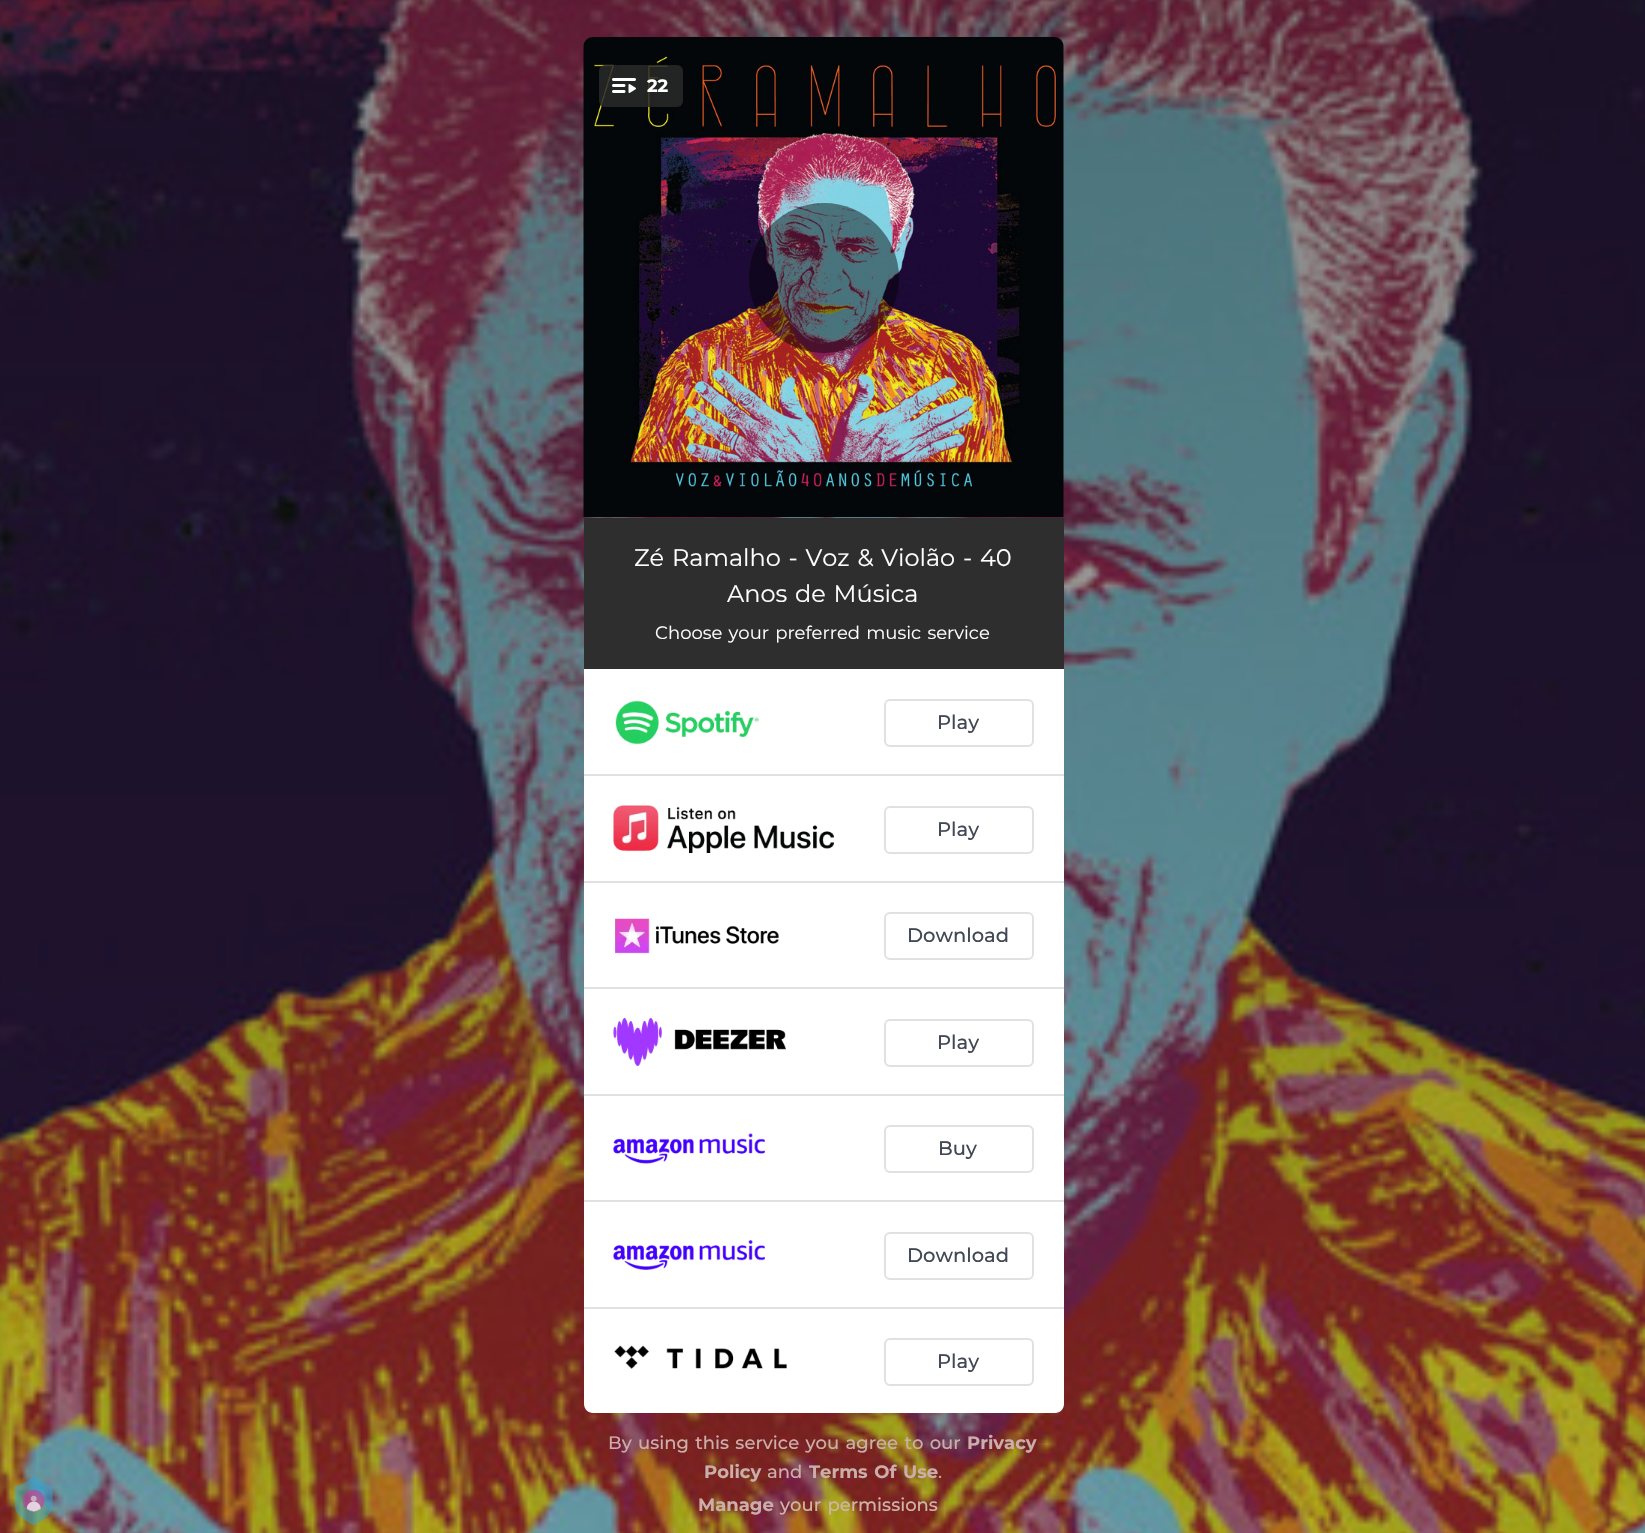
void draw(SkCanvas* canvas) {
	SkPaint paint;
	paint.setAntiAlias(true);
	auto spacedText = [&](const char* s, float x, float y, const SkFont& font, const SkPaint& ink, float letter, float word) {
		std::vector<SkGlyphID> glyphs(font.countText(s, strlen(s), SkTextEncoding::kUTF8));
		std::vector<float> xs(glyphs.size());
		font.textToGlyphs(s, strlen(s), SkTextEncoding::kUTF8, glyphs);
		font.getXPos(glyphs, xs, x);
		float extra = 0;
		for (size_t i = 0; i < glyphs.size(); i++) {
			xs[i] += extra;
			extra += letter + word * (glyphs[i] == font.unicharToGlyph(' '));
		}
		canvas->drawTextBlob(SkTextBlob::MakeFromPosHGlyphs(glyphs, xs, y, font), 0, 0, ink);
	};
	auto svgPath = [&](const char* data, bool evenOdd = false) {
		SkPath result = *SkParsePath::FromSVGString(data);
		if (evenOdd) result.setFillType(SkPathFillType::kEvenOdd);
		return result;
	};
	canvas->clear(0xffffffff);
	canvas->drawImageRect(SkImages::DeferredFromEncodedData(SkData::MakeFromFileName("img2.png")), SkRect::MakeXYWH(0, 0, 1645, 1533), SkSamplingOptions());
	canvas->drawImageRect(SkImages::DeferredFromEncodedData(SkData::MakeFromFileName("img1.png")), SkRect::MakeXYWH(15, 1476, 38, 50), SkSamplingOptions());
	canvas->drawImageRect(SkImages::DeferredFromEncodedData(SkData::MakeFromFileName("img3.png")), SkRect::MakeXYWH(583, 37, 481, 480), SkSamplingOptions());
	paint.setColor(0xd9282828);
	canvas->drawRoundRect(SkRect::MakeXYWH(599, 65, 84, 42), 6, 6, paint);
	canvas->drawImageRect(SkImages::DeferredFromEncodedData(SkData::MakeFromFileName("img4.png")), SkRect::MakeXYWH(612, 78, 24, 15), SkSamplingOptions());
	SkFont f1(fontMgr->matchFamilyStyle("Montserrat", SkFontStyle::Bold()), 18);
	f1.setSubpixel(true);
	paint.setColor(0xffffffff);
	canvas->drawString("22", 647, 92, f1, paint);
	paint.setColor(0x73000000);
	canvas->drawCircle(824, 278, 75, paint);
	paint.setColor(0xff2e2e2e);
	canvas->drawRect(SkRect::MakeXYWH(584, 518, 480, 151), paint);
	SkFont f2(fontMgr->matchFamilyStyle("Montserrat", SkFontStyle::Normal()), 24);
	f2.setSubpixel(true);
	paint.setColor(0xffffffff);
	spacedText("Zé Ramalho - Voz & Violão - 40", 634, 566, f2, paint, 0, 1.5);
	spacedText("Anos de Música", 727, 602, f2, paint, 0, 1.5);
	SkFont f3(fontMgr->matchFamilyStyle("Montserrat", SkFontStyle::Normal()), 18);
	f3.setSubpixel(true);
	spacedText("Choose your preferred music service", 655, 639, f3, paint, 0, 1.5);
	canvas->drawPath(svgPath("M584 669H1064V1404C1064 1409 1060 1413 1055 1413H593C588 1413 584 1409 584 1404Z"), paint);
	paint.setColor(0xffe1e1e4);
	canvas->drawRect(SkRect::MakeXYWH(584, 774, 480, 2), paint);
	canvas->drawImageRect(SkImages::DeferredFromEncodedData(SkData::MakeFromFileName("img5.png")), SkRect::MakeXYWH(615, 700, 144, 45), SkSamplingOptions());
	paint.setStroke(true);
	paint.setStrokeWidth(2);
	canvas->drawRoundRect(SkRect::MakeXYWH(885, 700, 148, 46), 5, 5, paint);
	SkFont f4(fontMgr->matchFamilyStyle("Montserrat", SkFontStyle(500, SkFontStyle::kNormal_Width, SkFontStyle::kUpright_Slant)), 19.5);
	f4.setSubpixel(true);
	paint.setStroke(false);
	paint.setColor(0xff414754);
	canvas->drawString("Play", 937, 729, f4, paint);
	paint.setColor(0xffe1e1e4);
	canvas->drawRect(SkRect::MakeXYWH(584, 881, 480, 2), paint);
	canvas->drawImageRect(SkImages::DeferredFromEncodedData(SkData::MakeFromFileName("img6.png")), SkRect::MakeXYWH(613, 805, 221, 48), SkSamplingOptions());
	paint.setStroke(true);
	canvas->drawRoundRect(SkRect::MakeXYWH(885, 807, 148, 46), 5, 5, paint);
	paint.setStroke(false);
	paint.setColor(0xff414754);
	canvas->drawString("Play", 937, 836, f4, paint);
	paint.setColor(0xffe1e1e4);
	canvas->drawRect(SkRect::MakeXYWH(584, 987, 480, 2), paint);
	canvas->drawImageRect(SkImages::DeferredFromEncodedData(SkData::MakeFromFileName("img7.png")), SkRect::MakeXYWH(615, 918, 164, 36), SkSamplingOptions());
	paint.setStroke(true);
	canvas->drawRoundRect(SkRect::MakeXYWH(885, 913, 148, 46), 5, 5, paint);
	paint.setStroke(false);
	paint.setColor(0xff414754);
	canvas->drawString("Download", 907, 942, f4, paint);
	paint.setColor(0xffe1e1e4);
	canvas->drawRect(SkRect::MakeXYWH(584, 1094, 480, 2), paint);
	canvas->drawImageRect(SkImages::DeferredFromEncodedData(SkData::MakeFromFileName("img8.png")), SkRect::MakeXYWH(613, 1018, 173, 48), SkSamplingOptions());
	paint.setStroke(true);
	canvas->drawRoundRect(SkRect::MakeXYWH(885, 1020, 148, 46), 5, 5, paint);
	paint.setStroke(false);
	paint.setColor(0xff414754);
	canvas->drawString("Play", 937, 1049, f4, paint);
	paint.setColor(0xffe1e1e4);
	canvas->drawRect(SkRect::MakeXYWH(584, 1200, 480, 2), paint);
	canvas->drawImageRect(SkImages::DeferredFromEncodedData(SkData::MakeFromFileName("img9.png")), SkRect::MakeXYWH(613, 1133, 152, 31), SkSamplingOptions());
	paint.setStroke(true);
	canvas->drawRoundRect(SkRect::MakeXYWH(885, 1126, 148, 46), 5, 5, paint);
	paint.setStroke(false);
	paint.setColor(0xff414754);
	canvas->drawString("Buy", 938, 1155, f4, paint);
	paint.setColor(0xffe1e1e4);
	canvas->drawRect(SkRect::MakeXYWH(584, 1307, 480, 2), paint);
	canvas->drawImageRect(SkImages::DeferredFromEncodedData(SkData::MakeFromFileName("img10.png")), SkRect::MakeXYWH(613, 1240, 152, 30), SkSamplingOptions());
	paint.setStroke(true);
	canvas->drawRoundRect(SkRect::MakeXYWH(885, 1233, 148, 46), 5, 5, paint);
	paint.setStroke(false);
	paint.setColor(0xff414754);
	canvas->drawString("Download", 907, 1262, f4, paint);
	canvas->drawImageRect(SkImages::DeferredFromEncodedData(SkData::MakeFromFileName("img11.png")), SkRect::MakeXYWH(614, 1345, 173, 24), SkSamplingOptions());
	paint.setStroke(true);
	paint.setColor(0xffe1e1e4);
	canvas->drawRoundRect(SkRect::MakeXYWH(885, 1339, 148, 46), 5, 5, paint);
	paint.setStroke(false);
	paint.setColor(0xff414754);
	canvas->drawString("Play", 937, 1368, f4, paint);
	SkFont f5(fontMgr->matchFamilyStyle("Montserrat", SkFontStyle(500, SkFontStyle::kNormal_Width, SkFontStyle::kUpright_Slant)), 18);
	f5.setSubpixel(true);
	paint.setColor(0xffcbaeaa);
	spacedText("By using this service you agree to our", 608, 1449, f5, paint, 0, 1.5);
	canvas->drawString("Privacy", 967, 1449, f1, paint);
	canvas->drawString("Policy", 704, 1478, f1, paint);
	canvas->drawString("and", 767, 1478, f5, paint);
	spacedText("Terms Of Use", 809, 1478, f1, paint, 0, 1.5);
	paint.setColor(0xffc8a7a5);
	canvas->drawString(".", 938, 1478, f5, paint);
	paint.setColor(0xffcbaeaa);
	canvas->drawString("Manage", 698, 1511, f1, paint);
	paint.setColor(0xffcfb4a8);
	spacedText("your permissions", 780, 1511, f5, paint, 0, 1.5);
}
